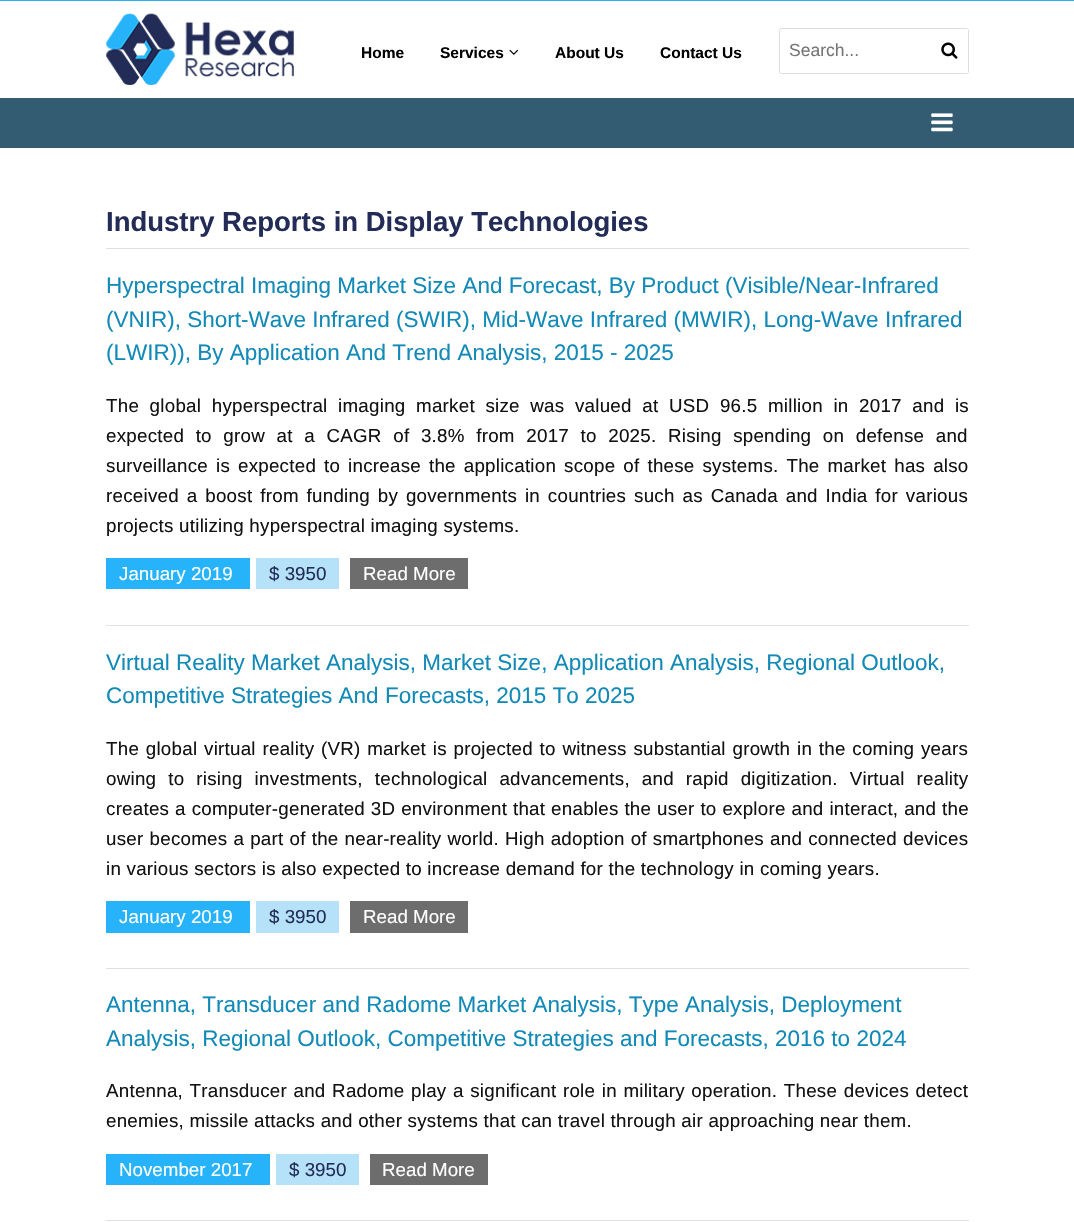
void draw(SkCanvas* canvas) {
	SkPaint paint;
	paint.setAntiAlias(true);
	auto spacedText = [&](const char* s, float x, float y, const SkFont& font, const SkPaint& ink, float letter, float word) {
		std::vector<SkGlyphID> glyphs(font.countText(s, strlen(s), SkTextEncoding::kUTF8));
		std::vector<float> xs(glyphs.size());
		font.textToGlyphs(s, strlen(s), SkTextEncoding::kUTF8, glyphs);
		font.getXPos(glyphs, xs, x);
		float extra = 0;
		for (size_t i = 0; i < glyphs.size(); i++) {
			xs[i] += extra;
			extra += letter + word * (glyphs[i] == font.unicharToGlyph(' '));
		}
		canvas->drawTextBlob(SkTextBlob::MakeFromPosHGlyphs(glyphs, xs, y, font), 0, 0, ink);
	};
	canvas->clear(0xffffffff);
	paint.setColor(0xff26b3fa);
	canvas->drawRect(SkRect::MakeXYWH(0, 0, 1074, 1), paint);
	canvas->drawImageRect(SkImages::DeferredFromEncodedData(SkData::MakeFromFileName("img1.png")), SkRect::MakeXYWH(106, 13, 188, 72), SkSamplingOptions());
	SkFont f1(fontMgr->matchFamilyStyle("Liberation Sans", SkFontStyle::Bold()), 15.5);
	f1.setSubpixel(true);
	paint.setColor(0xff000000);
	canvas->drawString("Home", 361, 58, f1, paint);
	canvas->drawString("Services", 440, 58, f1, paint);
	canvas->drawImageRect(SkImages::DeferredFromEncodedData(SkData::MakeFromFileName("img2.png")), SkRect::MakeXYWH(509, 49, 10, 6), SkSamplingOptions());
	canvas->drawString("About Us", 555, 58, f1, paint);
	canvas->drawString("Contact Us", 660, 58, f1, paint);
	paint.setStroke(true);
	paint.setStrokeWidth(1);
	paint.setColor(0xffdddddd);
	canvas->drawRoundRect(SkRect::MakeXYWH(779.5, 28.5, 189, 45), 2, 2, paint);
	SkFont f2(fontMgr->matchFamilyStyle("Liberation Sans", SkFontStyle::Normal()), 17.5);
	f2.setSubpixel(true);
	paint.setStroke(false);
	paint.setColor(0xff757575);
	canvas->drawString("Search...", 789, 56, f2, paint);
	paint.setColor(0xffffffff);
	canvas->drawRect(SkRect::MakeXYWH(967, 29, 1, 44), paint);
	canvas->drawImageRect(SkImages::DeferredFromEncodedData(SkData::MakeFromFileName("img3.png")), SkRect::MakeXYWH(941, 42, 17, 17), SkSamplingOptions());
	paint.setColor(0xff335c72);
	canvas->drawRect(SkRect::MakeXYWH(0, 98, 1074, 50), paint);
	canvas->drawImageRect(SkImages::DeferredFromEncodedData(SkData::MakeFromFileName("img4.png")), SkRect::MakeXYWH(931, 113, 22, 19), SkSamplingOptions());
	SkFont f3(fontMgr->matchFamilyStyle("Liberation Sans", SkFontStyle::Bold()), 27.5);
	f3.setSubpixel(true);
	paint.setColor(0xff222c57);
	canvas->drawString("Industry Reports in Display Technologies", 106, 231, f3, paint);
	paint.setColor(0xffe0e0e0);
	canvas->drawRect(SkRect::MakeXYWH(106, 248, 863, 1), paint);
	SkFont f4(fontMgr->matchFamilyStyle("Liberation Sans", SkFontStyle::Normal()), 22.5);
	f4.setSubpixel(true);
	paint.setColor(0xff128ab7);
	canvas->drawString("Hyperspectral Imaging Market Size And Forecast, By Product (Visible/Near-Infrared", 106, 293, f4, paint);
	canvas->drawString("(VNIR), Short-Wave Infrared (SWIR), Mid-Wave Infrared (MWIR), Long-Wave Infrared", 106, 327, f4, paint);
	canvas->drawString("(LWIR)), By Application And Trend Analysis, 2015 - 2025", 106, 360, f4, paint);
	SkFont f5(fontMgr->matchFamilyStyle("Liberation Sans", SkFontStyle::Normal()), 18.75);
	f5.setSubpixel(true);
	paint.setColor(0xff121212);
	spacedText("The global hyperspectral imaging market size was valued at USD 96.5 million in 2017 and is", 106, 412, f5, paint, 0.25, 5.1);
	spacedText("expected to grow at a CAGR of 3.8% from 2017 to 2025. Rising spending on defense and", 106, 442, f5, paint, 0.25, 6.1);
	spacedText("surveillance is expected to increase the application scope of these systems. The market has also", 106, 472, f5, paint, 0.25, 2.5);
	spacedText("received a boost from funding by governments in countries such as Canada and India for various", 106, 502, f5, paint, 0.25, 2.4);
	spacedText("projects utilizing hyperspectral imaging systems.", 106, 532, f5, paint, 0.25, 0);
	paint.setColor(0xff26b3fa);
	canvas->drawRect(SkRect::MakeXYWH(106, 558, 144, 31), paint);
	paint.setColor(0xffffffff);
	canvas->drawString("January 2019", 119, 580, f5, paint);
	paint.setColor(0xffb5e1f9);
	canvas->drawRect(SkRect::MakeXYWH(256, 558, 83, 31), paint);
	paint.setColor(0xff222c57);
	canvas->drawString("$ 3950", 269, 580, f5, paint);
	paint.setColor(0xff6d6d6d);
	canvas->drawRect(SkRect::MakeXYWH(350, 558, 118, 31), paint);
	paint.setColor(0xffffffff);
	canvas->drawString("Read More", 363, 580, f5, paint);
	paint.setColor(0xffe0e0e0);
	canvas->drawRect(SkRect::MakeXYWH(106, 625, 863, 1), paint);
	paint.setColor(0xff128ab7);
	canvas->drawString("Virtual Reality Market Analysis, Market Size, Application Analysis, Regional Outlook,", 106, 670, f4, paint);
	canvas->drawString("Competitive Strategies And Forecasts, 2015 To 2025", 106, 703, f4, paint);
	paint.setColor(0xff121212);
	spacedText("The global virtual reality (VR) market is projected to witness substantial growth in the coming years", 106, 755, f5, paint, 0.25, 1.25);
	spacedText("owing to rising investments, technological advancements, and rapid digitization. Virtual reality", 106, 785, f5, paint, 0.25, 6.5);
	spacedText("creates a computer-generated 3D environment that enables the user to explore and interact, and the", 106, 815, f5, paint, 0.25, 0.4);
	spacedText("user becomes a part of the near-reality world. High adoption of smartphones and connected devices", 106, 845, f5, paint, 0.25, 0.6);
	spacedText("in various sectors is also expected to increase demand for the technology in coming years.", 106, 875, f5, paint, 0.25, 0);
	paint.setColor(0xff26b3fa);
	canvas->drawRect(SkRect::MakeXYWH(106, 901, 144, 32), paint);
	paint.setColor(0xffffffff);
	canvas->drawString("January 2019", 119, 923, f5, paint);
	paint.setColor(0xffb5e1f9);
	canvas->drawRect(SkRect::MakeXYWH(256, 901, 83, 32), paint);
	paint.setColor(0xff222c57);
	canvas->drawString("$ 3950", 269, 923, f5, paint);
	paint.setColor(0xff6d6d6d);
	canvas->drawRect(SkRect::MakeXYWH(350, 901, 118, 32), paint);
	paint.setColor(0xffffffff);
	canvas->drawString("Read More", 363, 923, f5, paint);
	paint.setColor(0xffe0e0e0);
	canvas->drawRect(SkRect::MakeXYWH(106, 968, 863, 1), paint);
	paint.setColor(0xff128ab7);
	canvas->drawString("Antenna, Transducer and Radome Market Analysis, Type Analysis, Deployment", 106, 1012, f4, paint);
	canvas->drawString("Analysis, Regional Outlook, Competitive Strategies and Forecasts, 2016 to 2024", 106, 1046, f4, paint);
	paint.setColor(0xff121212);
	spacedText("Antenna, Transducer and Radome play a significant role in military operation. These devices detect", 106, 1097, f5, paint, 0.25, 1.1);
	spacedText("enemies, missile attacks and other systems that can travel through air approaching near them.", 106, 1127, f5, paint, 0.25, 0);
	paint.setColor(0xff26b3fa);
	canvas->drawRect(SkRect::MakeXYWH(106, 1154, 164, 31), paint);
	paint.setColor(0xffffffff);
	canvas->drawString("November 2017", 119, 1176, f5, paint);
	paint.setColor(0xffb5e1f9);
	canvas->drawRect(SkRect::MakeXYWH(276, 1154, 83, 31), paint);
	paint.setColor(0xff222c57);
	canvas->drawString("$ 3950", 289, 1176, f5, paint);
	paint.setColor(0xff6d6d6d);
	canvas->drawRect(SkRect::MakeXYWH(370, 1154, 118, 31), paint);
	paint.setColor(0xffffffff);
	canvas->drawString("Read More", 382, 1176, f5, paint);
	paint.setColor(0xffe0e0e0);
	canvas->drawRect(SkRect::MakeXYWH(106, 1220, 863, 1), paint);
}
